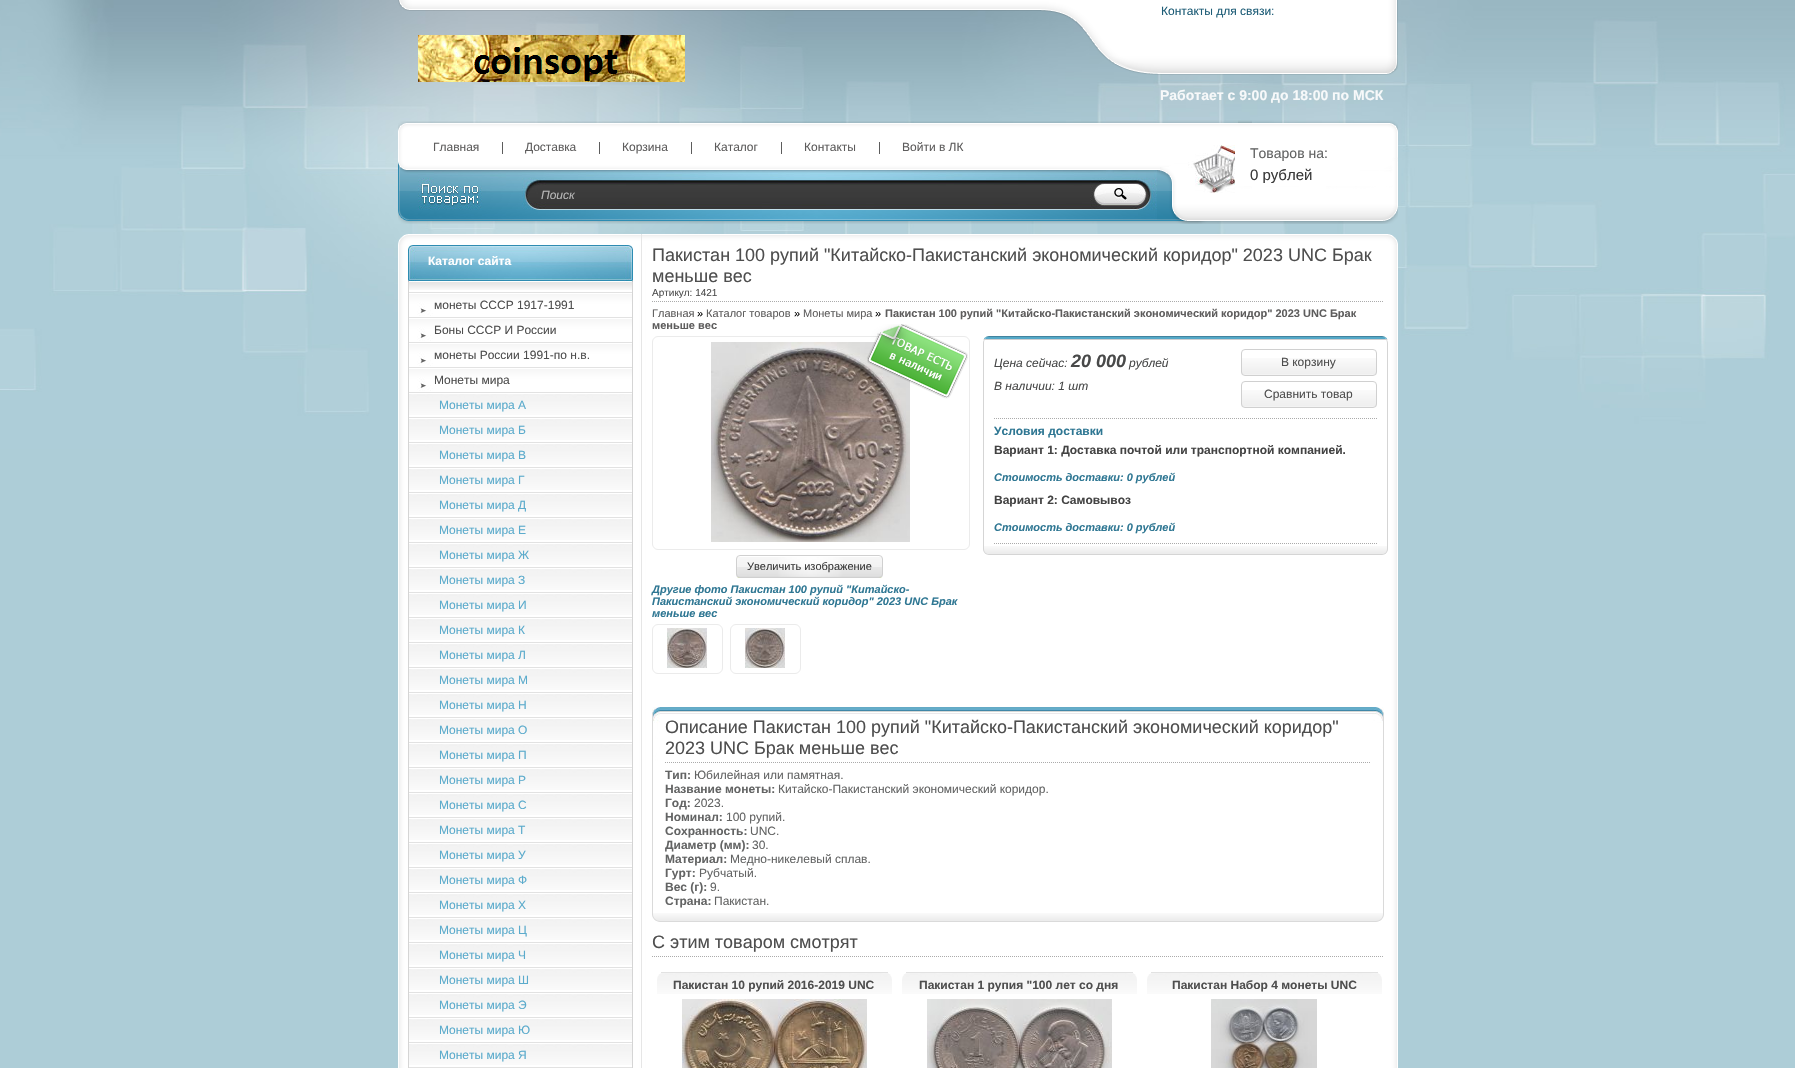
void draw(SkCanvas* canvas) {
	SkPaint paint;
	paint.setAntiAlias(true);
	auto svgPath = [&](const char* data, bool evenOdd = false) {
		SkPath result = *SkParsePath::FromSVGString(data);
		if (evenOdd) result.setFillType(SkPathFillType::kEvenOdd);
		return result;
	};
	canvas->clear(0xffadcdd7);
	canvas->drawImageRect(SkImages::DeferredFromEncodedData(SkData::MakeFromFileName("img1.png")), SkRect::MakeXYWH(0, 0, 1795, 449), SkSamplingOptions());
	canvas->drawImageRect(SkImages::DeferredFromEncodedData(SkData::MakeFromFileName("img2.png")), SkRect::MakeXYWH(398, 0, 14, 11), SkSamplingOptions());
	canvas->drawImageRect(SkImages::DeferredFromEncodedData(SkData::MakeFromFileName("img3.png")), SkRect::MakeXYWH(412, 0, 628, 11), SkSamplingOptions());
	canvas->drawImageRect(SkImages::DeferredFromEncodedData(SkData::MakeFromFileName("img4.png")), SkRect::MakeXYWH(1040, 0, 358, 75), SkSamplingOptions());
	SkFont f1(fontMgr->matchFamilyStyle("Liberation Sans", SkFontStyle::Normal()), 12);
	f1.setSubpixel(true);
	paint.setColor(0xff1e5d77);
	canvas->drawString("Контакты для связи:", 1161, 15, f1, paint);
	SkFont f2(fontMgr->matchFamilyStyle("Liberation Sans", SkFontStyle::Bold()), 14);
	f2.setSubpixel(true);
	paint.setColor(0xfff7f9fa);
	canvas->drawString("Работает с 9:00 до 18:00 по МСК", 1160, 100, f2, paint);
	canvas->drawImageRect(SkImages::DeferredFromEncodedData(SkData::MakeFromFileName("img5.png")), SkRect::MakeXYWH(418, 35, 267, 47), SkSamplingOptions());
	canvas->drawImageRect(SkImages::DeferredFromEncodedData(SkData::MakeFromFileName("img6.png")), SkRect::MakeXYWH(398, 121, 12, 103), SkSamplingOptions());
	canvas->drawImageRect(SkImages::DeferredFromEncodedData(SkData::MakeFromFileName("img7.png")), SkRect::MakeXYWH(410, 121, 747, 103), SkSamplingOptions());
	paint.setColor(0xff5e5d5d);
	canvas->drawString("Главная", 433, 151, f1, paint);
	paint.setColor(0xff5c5c5c);
	canvas->drawRect(SkRect::MakeXYWH(502, 142, 1, 12), paint);
	paint.setColor(0xff5e5d5d);
	canvas->drawString("Доставка", 525, 151, f1, paint);
	paint.setColor(0xff5c5c5c);
	canvas->drawRect(SkRect::MakeXYWH(599, 142, 1, 12), paint);
	paint.setColor(0xff5e5d5d);
	canvas->drawString("Корзина", 622, 151, f1, paint);
	paint.setColor(0xff5c5c5c);
	canvas->drawRect(SkRect::MakeXYWH(691, 142, 1, 12), paint);
	paint.setColor(0xff5e5d5d);
	canvas->drawString("Каталог", 714, 151, f1, paint);
	paint.setColor(0xff5c5c5c);
	canvas->drawRect(SkRect::MakeXYWH(781, 142, 1, 12), paint);
	paint.setColor(0xff5e5d5d);
	canvas->drawString("Контакты", 804, 151, f1, paint);
	paint.setColor(0xff5c5c5c);
	canvas->drawRect(SkRect::MakeXYWH(879, 142, 1, 12), paint);
	paint.setColor(0xff5e5d5d);
	canvas->drawString("Войти в ЛК", 902, 151, f1, paint);
	canvas->drawImageRect(SkImages::DeferredFromEncodedData(SkData::MakeFromFileName("img8.png")), SkRect::MakeXYWH(410, 170, 747, 50), SkSamplingOptions());
	SkFont f3(fontMgr->matchFamilyStyle("Liberation Sans", SkFontStyle::Italic()), 12);
	f3.setSubpixel(true);
	paint.setColor(0xffb7b7b7);
	canvas->drawString("Поиск", 541, 199, f3, paint);
	canvas->drawImageRect(SkImages::DeferredFromEncodedData(SkData::MakeFromFileName("img9.png")), SkRect::MakeXYWH(1157, 120, 241, 104), SkSamplingOptions());
	canvas->drawImageRect(SkImages::DeferredFromEncodedData(SkData::MakeFromFileName("img10.png")), SkRect::MakeXYWH(1188, 145, 47, 48), SkSamplingOptions());
	SkFont f4(fontMgr->matchFamilyStyle("Liberation Sans", SkFontStyle::Normal()), 14);
	f4.setSubpixel(true);
	paint.setColor(0xff636464);
	canvas->drawString("Товаров на:", 1250, 158, f4, paint);
	SkFont f5(fontMgr->matchFamilyStyle("Liberation Sans", SkFontStyle::Normal()), 15);
	f5.setSubpixel(true);
	paint.setColor(0xff3a3a3a);
	canvas->drawString("0 рублей", 1250, 180, f5, paint);
	canvas->drawImageRect(SkImages::DeferredFromEncodedData(SkData::MakeFromFileName("img11.png")), SkRect::MakeXYWH(398, 234, 1000, 11), SkSamplingOptions());
	canvas->drawImageRect(SkImages::DeferredFromEncodedData(SkData::MakeFromFileName("img12.png")), SkRect::MakeXYWH(398, 245, 1000, 823), SkSamplingOptions());
	canvas->drawImageRect(SkImages::DeferredFromEncodedData(SkData::MakeFromFileName("img13.png")), SkRect::MakeXYWH(408, 245, 225, 37), SkSamplingOptions());
	SkFont f6(fontMgr->matchFamilyStyle("Liberation Sans", SkFontStyle::Bold()), 12);
	f6.setSubpixel(true);
	paint.setColor(0xffffffff);
	canvas->drawString("Каталог сайта", 428, 265, f6, paint);
	canvas->drawImageRect(SkImages::DeferredFromEncodedData(SkData::MakeFromFileName("img14.png")), SkRect::MakeXYWH(409, 282, 223, 8), SkSamplingOptions());
	paint.setColor(0xffd5d5d5);
	canvas->drawRect(SkRect::MakeXYWH(632, 282, 1, 786), paint);
	canvas->drawRect(SkRect::MakeXYWH(408, 282, 1, 786), paint);
	paint.setColor(0xffe2e2e2);
	canvas->drawRect(SkRect::MakeXYWH(409, 292, 223, 1), paint);
	canvas->drawImageRect(SkImages::DeferredFromEncodedData(SkData::MakeFromFileName("img15.png")), SkRect::MakeXYWH(409, 294, 223, 22), SkSamplingOptions());
	canvas->drawRect(SkRect::MakeXYWH(409, 317, 223, 1), paint);
	paint.setColor(0xff4e4e4e);
	canvas->drawString("монеты СССР 1917-1991", 434, 309, f1, paint);
	canvas->drawImageRect(SkImages::DeferredFromEncodedData(SkData::MakeFromFileName("img15.png")), SkRect::MakeXYWH(409, 319, 223, 22), SkSamplingOptions());
	paint.setColor(0xffe2e2e2);
	canvas->drawRect(SkRect::MakeXYWH(409, 342, 223, 1), paint);
	paint.setColor(0xff4e4e4e);
	canvas->drawString("Боны СССР И России", 434, 334, f1, paint);
	canvas->drawImageRect(SkImages::DeferredFromEncodedData(SkData::MakeFromFileName("img15.png")), SkRect::MakeXYWH(409, 344, 223, 22), SkSamplingOptions());
	paint.setColor(0xffe2e2e2);
	canvas->drawRect(SkRect::MakeXYWH(409, 367, 223, 1), paint);
	paint.setColor(0xff4e4e4e);
	canvas->drawString("монеты России 1991-по н.в.", 434, 359, f1, paint);
	canvas->drawImageRect(SkImages::DeferredFromEncodedData(SkData::MakeFromFileName("img15.png")), SkRect::MakeXYWH(409, 369, 223, 22), SkSamplingOptions());
	paint.setColor(0xffe2e2e2);
	canvas->drawRect(SkRect::MakeXYWH(409, 392, 223, 1), paint);
	paint.setColor(0xff4e4e4e);
	canvas->drawString("Монеты мира", 434, 384, f1, paint);
	canvas->drawImageRect(SkImages::DeferredFromEncodedData(SkData::MakeFromFileName("img16.png")), SkRect::MakeXYWH(409, 394, 223, 21), SkSamplingOptions());
	paint.setColor(0xffe2e2e2);
	canvas->drawRect(SkRect::MakeXYWH(409, 417, 223, 1), paint);
	paint.setColor(0xff5babcc);
	canvas->drawString("Монеты мира А", 439, 409, f1, paint);
	canvas->drawImageRect(SkImages::DeferredFromEncodedData(SkData::MakeFromFileName("img16.png")), SkRect::MakeXYWH(409, 419, 223, 21), SkSamplingOptions());
	paint.setColor(0xffe2e2e2);
	canvas->drawRect(SkRect::MakeXYWH(409, 442, 223, 1), paint);
	paint.setColor(0xff5babcc);
	canvas->drawString("Монеты мира Б", 439, 434, f1, paint);
	canvas->drawImageRect(SkImages::DeferredFromEncodedData(SkData::MakeFromFileName("img16.png")), SkRect::MakeXYWH(409, 444, 223, 21), SkSamplingOptions());
	paint.setColor(0xffe2e2e2);
	canvas->drawRect(SkRect::MakeXYWH(409, 467, 223, 1), paint);
	paint.setColor(0xff5babcc);
	canvas->drawString("Монеты мира В", 439, 459, f1, paint);
	canvas->drawImageRect(SkImages::DeferredFromEncodedData(SkData::MakeFromFileName("img16.png")), SkRect::MakeXYWH(409, 469, 223, 21), SkSamplingOptions());
	paint.setColor(0xffe2e2e2);
	canvas->drawRect(SkRect::MakeXYWH(409, 492, 223, 1), paint);
	paint.setColor(0xff5babcc);
	canvas->drawString("Монеты мира Г", 439, 484, f1, paint);
	canvas->drawImageRect(SkImages::DeferredFromEncodedData(SkData::MakeFromFileName("img16.png")), SkRect::MakeXYWH(409, 494, 223, 21), SkSamplingOptions());
	paint.setColor(0xffe2e2e2);
	canvas->drawRect(SkRect::MakeXYWH(409, 517, 223, 1), paint);
	paint.setColor(0xff5babcc);
	canvas->drawString("Монеты мира Д", 439, 509, f1, paint);
	canvas->drawImageRect(SkImages::DeferredFromEncodedData(SkData::MakeFromFileName("img16.png")), SkRect::MakeXYWH(409, 519, 223, 21), SkSamplingOptions());
	paint.setColor(0xffe2e2e2);
	canvas->drawRect(SkRect::MakeXYWH(409, 542, 223, 1), paint);
	paint.setColor(0xff5babcc);
	canvas->drawString("Монеты мира Е", 439, 534, f1, paint);
	canvas->drawImageRect(SkImages::DeferredFromEncodedData(SkData::MakeFromFileName("img16.png")), SkRect::MakeXYWH(409, 544, 223, 21), SkSamplingOptions());
	paint.setColor(0xffe2e2e2);
	canvas->drawRect(SkRect::MakeXYWH(409, 567, 223, 1), paint);
	paint.setColor(0xff5babcc);
	canvas->drawString("Монеты мира Ж", 439, 559, f1, paint);
	canvas->drawImageRect(SkImages::DeferredFromEncodedData(SkData::MakeFromFileName("img16.png")), SkRect::MakeXYWH(409, 569, 223, 21), SkSamplingOptions());
	paint.setColor(0xffe2e2e2);
	canvas->drawRect(SkRect::MakeXYWH(409, 592, 223, 1), paint);
	paint.setColor(0xff5babcc);
	canvas->drawString("Монеты мира З", 439, 584, f1, paint);
	canvas->drawImageRect(SkImages::DeferredFromEncodedData(SkData::MakeFromFileName("img16.png")), SkRect::MakeXYWH(409, 594, 223, 21), SkSamplingOptions());
	paint.setColor(0xffe2e2e2);
	canvas->drawRect(SkRect::MakeXYWH(409, 617, 223, 1), paint);
	paint.setColor(0xff5babcc);
	canvas->drawString("Монеты мира И", 439, 609, f1, paint);
	canvas->drawImageRect(SkImages::DeferredFromEncodedData(SkData::MakeFromFileName("img16.png")), SkRect::MakeXYWH(409, 619, 223, 21), SkSamplingOptions());
	paint.setColor(0xffe2e2e2);
	canvas->drawRect(SkRect::MakeXYWH(409, 642, 223, 1), paint);
	paint.setColor(0xff5babcc);
	canvas->drawString("Монеты мира К", 439, 634, f1, paint);
	canvas->drawImageRect(SkImages::DeferredFromEncodedData(SkData::MakeFromFileName("img16.png")), SkRect::MakeXYWH(409, 644, 223, 21), SkSamplingOptions());
	paint.setColor(0xffe2e2e2);
	canvas->drawRect(SkRect::MakeXYWH(409, 667, 223, 1), paint);
	paint.setColor(0xff5babcc);
	canvas->drawString("Монеты мира Л", 439, 659, f1, paint);
	canvas->drawImageRect(SkImages::DeferredFromEncodedData(SkData::MakeFromFileName("img16.png")), SkRect::MakeXYWH(409, 669, 223, 21), SkSamplingOptions());
	paint.setColor(0xffe2e2e2);
	canvas->drawRect(SkRect::MakeXYWH(409, 692, 223, 1), paint);
	paint.setColor(0xff5babcc);
	canvas->drawString("Монеты мира М", 439, 684, f1, paint);
	canvas->drawImageRect(SkImages::DeferredFromEncodedData(SkData::MakeFromFileName("img16.png")), SkRect::MakeXYWH(409, 694, 223, 21), SkSamplingOptions());
	paint.setColor(0xffe2e2e2);
	canvas->drawRect(SkRect::MakeXYWH(409, 717, 223, 1), paint);
	paint.setColor(0xff5babcc);
	canvas->drawString("Монеты мира Н", 439, 709, f1, paint);
	canvas->drawImageRect(SkImages::DeferredFromEncodedData(SkData::MakeFromFileName("img16.png")), SkRect::MakeXYWH(409, 719, 223, 21), SkSamplingOptions());
	paint.setColor(0xffe2e2e2);
	canvas->drawRect(SkRect::MakeXYWH(409, 742, 223, 1), paint);
	paint.setColor(0xff5babcc);
	canvas->drawString("Монеты мира О", 439, 734, f1, paint);
	canvas->drawImageRect(SkImages::DeferredFromEncodedData(SkData::MakeFromFileName("img16.png")), SkRect::MakeXYWH(409, 744, 223, 21), SkSamplingOptions());
	paint.setColor(0xffe2e2e2);
	canvas->drawRect(SkRect::MakeXYWH(409, 767, 223, 1), paint);
	paint.setColor(0xff5babcc);
	canvas->drawString("Монеты мира П", 439, 759, f1, paint);
	canvas->drawImageRect(SkImages::DeferredFromEncodedData(SkData::MakeFromFileName("img16.png")), SkRect::MakeXYWH(409, 769, 223, 21), SkSamplingOptions());
	paint.setColor(0xffe2e2e2);
	canvas->drawRect(SkRect::MakeXYWH(409, 792, 223, 1), paint);
	paint.setColor(0xff5babcc);
	canvas->drawString("Монеты мира Р", 439, 784, f1, paint);
	canvas->drawImageRect(SkImages::DeferredFromEncodedData(SkData::MakeFromFileName("img16.png")), SkRect::MakeXYWH(409, 794, 223, 21), SkSamplingOptions());
	paint.setColor(0xffe2e2e2);
	canvas->drawRect(SkRect::MakeXYWH(409, 817, 223, 1), paint);
	paint.setColor(0xff5babcc);
	canvas->drawString("Монеты мира С", 439, 809, f1, paint);
	canvas->drawImageRect(SkImages::DeferredFromEncodedData(SkData::MakeFromFileName("img16.png")), SkRect::MakeXYWH(409, 819, 223, 21), SkSamplingOptions());
	paint.setColor(0xffe2e2e2);
	canvas->drawRect(SkRect::MakeXYWH(409, 842, 223, 1), paint);
	paint.setColor(0xff5babcc);
	canvas->drawString("Монеты мира Т", 439, 834, f1, paint);
	canvas->drawImageRect(SkImages::DeferredFromEncodedData(SkData::MakeFromFileName("img16.png")), SkRect::MakeXYWH(409, 844, 223, 21), SkSamplingOptions());
	paint.setColor(0xffe2e2e2);
	canvas->drawRect(SkRect::MakeXYWH(409, 867, 223, 1), paint);
	paint.setColor(0xff5babcc);
	canvas->drawString("Монеты мира У", 439, 859, f1, paint);
	canvas->drawImageRect(SkImages::DeferredFromEncodedData(SkData::MakeFromFileName("img16.png")), SkRect::MakeXYWH(409, 869, 223, 21), SkSamplingOptions());
	paint.setColor(0xffe2e2e2);
	canvas->drawRect(SkRect::MakeXYWH(409, 892, 223, 1), paint);
	paint.setColor(0xff5babcc);
	canvas->drawString("Монеты мира Ф", 439, 884, f1, paint);
	canvas->drawImageRect(SkImages::DeferredFromEncodedData(SkData::MakeFromFileName("img16.png")), SkRect::MakeXYWH(409, 894, 223, 21), SkSamplingOptions());
	paint.setColor(0xffe2e2e2);
	canvas->drawRect(SkRect::MakeXYWH(409, 917, 223, 1), paint);
	paint.setColor(0xff5babcc);
	canvas->drawString("Монеты мира Х", 439, 909, f1, paint);
	canvas->drawImageRect(SkImages::DeferredFromEncodedData(SkData::MakeFromFileName("img16.png")), SkRect::MakeXYWH(409, 919, 223, 21), SkSamplingOptions());
	paint.setColor(0xffe2e2e2);
	canvas->drawRect(SkRect::MakeXYWH(409, 942, 223, 1), paint);
	paint.setColor(0xff5babcc);
	canvas->drawString("Монеты мира Ц", 439, 934, f1, paint);
	canvas->drawImageRect(SkImages::DeferredFromEncodedData(SkData::MakeFromFileName("img16.png")), SkRect::MakeXYWH(409, 944, 223, 21), SkSamplingOptions());
	paint.setColor(0xffe2e2e2);
	canvas->drawRect(SkRect::MakeXYWH(409, 967, 223, 1), paint);
	paint.setColor(0xff5babcc);
	canvas->drawString("Монеты мира Ч", 439, 959, f1, paint);
	canvas->drawImageRect(SkImages::DeferredFromEncodedData(SkData::MakeFromFileName("img16.png")), SkRect::MakeXYWH(409, 969, 223, 21), SkSamplingOptions());
	paint.setColor(0xffe2e2e2);
	canvas->drawRect(SkRect::MakeXYWH(409, 992, 223, 1), paint);
	paint.setColor(0xff5babcc);
	canvas->drawString("Монеты мира Ш", 439, 984, f1, paint);
	canvas->drawImageRect(SkImages::DeferredFromEncodedData(SkData::MakeFromFileName("img16.png")), SkRect::MakeXYWH(409, 994, 223, 21), SkSamplingOptions());
	paint.setColor(0xffe2e2e2);
	canvas->drawRect(SkRect::MakeXYWH(409, 1017, 223, 1), paint);
	paint.setColor(0xff5babcc);
	canvas->drawString("Монеты мира Э", 439, 1009, f1, paint);
	canvas->drawImageRect(SkImages::DeferredFromEncodedData(SkData::MakeFromFileName("img16.png")), SkRect::MakeXYWH(409, 1019, 223, 21), SkSamplingOptions());
	paint.setColor(0xffe2e2e2);
	canvas->drawRect(SkRect::MakeXYWH(409, 1042, 223, 1), paint);
	paint.setColor(0xff5babcc);
	canvas->drawString("Монеты мира Ю", 439, 1034, f1, paint);
	canvas->drawImageRect(SkImages::DeferredFromEncodedData(SkData::MakeFromFileName("img16.png")), SkRect::MakeXYWH(409, 1044, 223, 21), SkSamplingOptions());
	paint.setColor(0xffe2e2e2);
	canvas->drawRect(SkRect::MakeXYWH(409, 1067, 223, 1), paint);
	paint.setColor(0xff5babcc);
	canvas->drawString("Монеты мира Я", 439, 1059, f1, paint);
	paint.setStroke(true);
	paint.setStrokeWidth(1);
	paint.setColor(0xffababab);
	paint.setPathEffect(SkDashPathEffect::Make({{1, 1}}, 0));
	canvas->drawPath(svgPath("M652 301.5H1384"), paint);
	paint.setPathEffect(nullptr);
	SkFont f7(fontMgr->matchFamilyStyle("Liberation Sans", SkFontStyle::Normal()), 18);
	f7.setSubpixel(true);
	paint.setStroke(false);
	paint.setColor(0xff4e4e4e);
	canvas->drawString("Пакистан 100 рупий \"Китайско-Пакистанский экономический коридор\" 2023 UNC Брак", 652, 261, f7, paint);
	canvas->drawString("меньше вес", 652, 282, f7, paint);
	SkFont f8(fontMgr->matchFamilyStyle("Liberation Sans", SkFontStyle::Normal()), 10);
	f8.setSubpixel(true);
	canvas->drawString("Артикул: 1421", 652, 296, f8, paint);
	SkFont f9(fontMgr->matchFamilyStyle("Liberation Sans", SkFontStyle::Normal()), 11);
	f9.setSubpixel(true);
	paint.setColor(0xff5e5d5d);
	canvas->drawString("Главная", 652, 317, f9, paint);
	paint.setColor(0xff000000);
	canvas->drawString("»", 697, 317, f9, paint);
	paint.setColor(0xff5e5d5d);
	canvas->drawString("Каталог товаров", 706, 317, f9, paint);
	paint.setColor(0xff000000);
	canvas->drawString("»", 794, 317, f9, paint);
	paint.setColor(0xff5e5d5d);
	canvas->drawString("Монеты мира", 803, 317, f9, paint);
	paint.setColor(0xff000000);
	canvas->drawString("»", 875, 317, f9, paint);
	SkFont f10(fontMgr->matchFamilyStyle("Liberation Sans", SkFontStyle::Bold()), 11);
	f10.setSubpixel(true);
	paint.setColor(0xff5e5d5d);
	canvas->drawString("Пакистан 100 рупий \"Китайско-Пакистанский экономический коридор\" 2023 UNC Брак", 885, 317, f10, paint);
	canvas->drawString("меньше вес", 652, 329, f10, paint);
	canvas->drawImageRect(SkImages::DeferredFromEncodedData(SkData::MakeFromFileName("img17.png")), SkRect::MakeXYWH(983, 336, 405, 4), SkSamplingOptions());
	canvas->drawImageRect(SkImages::DeferredFromEncodedData(SkData::MakeFromFileName("img18.png")), SkRect::MakeXYWH(983, 546, 405, 8), SkSamplingOptions());
	paint.setColor(0xffd5d5d5);
	canvas->drawPath(svgPath("M989 337H1382C1385 337 1388 340 1388 343V549C1388 552 1385 555 1382 555H989C986 555 983 552 983 549V343C983 340 986 337 989 337ZM989 337H1382C1385 337 1387 340 1387 343V549C1387 552 1385 554 1382 554H989C986 554 984 552 984 549V343C984 340 986 337 989 337Z", true), paint);
	paint.setStroke(true);
	paint.setColor(0xffababab);
	paint.setPathEffect(SkDashPathEffect::Make({{1, 1}}, 0));
	canvas->drawPath(svgPath("M994 418.5H1377"), paint);
	paint.setPathEffect(nullptr);
	paint.setStroke(false);
	paint.setColor(0xff484949);
	canvas->drawString("Цена сейчас:", 994, 367, f3, paint);
	SkFont f11(fontMgr->matchFamilyStyle("Liberation Sans", SkFontStyle::BoldItalic()), 18);
	f11.setSubpixel(true);
	canvas->drawString("20 000", 1071, 367, f11, paint);
	canvas->drawString("рублей", 1129, 367, f3, paint);
	canvas->drawString("В наличии: 1 шт", 994, 390, f3, paint);
	canvas->drawImageRect(SkImages::DeferredFromEncodedData(SkData::MakeFromFileName("img19.png")), SkRect::MakeXYWH(1241, 358, 136, 17), SkSamplingOptions());
	paint.setStroke(true);
	paint.setColor(0xffd0d0d0);
	canvas->drawRoundRect(SkRect::MakeXYWH(1241.5, 349.5, 135, 26), 3.5, 3.5, paint);
	paint.setStroke(false);
	paint.setColor(0xff4e4e4e);
	canvas->drawString("В корзину", 1281, 366, f1, paint);
	canvas->drawImageRect(SkImages::DeferredFromEncodedData(SkData::MakeFromFileName("img19.png")), SkRect::MakeXYWH(1241, 390, 136, 17), SkSamplingOptions());
	paint.setStroke(true);
	paint.setColor(0xffd0d0d0);
	canvas->drawRoundRect(SkRect::MakeXYWH(1241.5, 381.5, 135, 26), 3.5, 3.5, paint);
	paint.setStroke(false);
	paint.setColor(0xff4e4e4e);
	canvas->drawString("Сравнить товар", 1264, 398, f1, paint);
	paint.setStroke(true);
	paint.setColor(0xffababab);
	paint.setPathEffect(SkDashPathEffect::Make({{1, 1}}, 0));
	canvas->drawPath(svgPath("M994 543.5H1377"), paint);
	paint.setPathEffect(nullptr);
	paint.setStroke(false);
	paint.setColor(0xff2f7793);
	canvas->drawString("Условия доставки", 994, 435, f6, paint);
	paint.setColor(0xff434343);
	canvas->drawString("Вариант 1: Доставка почтой или транспортной компанией.", 994, 454, f6, paint);
	SkFont f12(fontMgr->matchFamilyStyle("Liberation Sans", SkFontStyle::BoldItalic()), 11);
	f12.setSubpixel(true);
	paint.setColor(0xff2f7793);
	canvas->drawString("Стоимость доставки: 0 рублей", 994, 481, f12, paint);
	paint.setColor(0xff434343);
	canvas->drawString("Вариант 2: Самовывоз", 994, 504, f6, paint);
	paint.setColor(0xff2f7793);
	canvas->drawString("Стоимость доставки: 0 рублей", 994, 531, f12, paint);
	paint.setStroke(true);
	paint.setColor(0xffebebeb);
	canvas->drawRoundRect(SkRect::MakeXYWH(652.5, 336.5, 317, 213), 5.5, 5.5, paint);
	canvas->drawImageRect(SkImages::DeferredFromEncodedData(SkData::MakeFromFileName("img20.png")), SkRect::MakeXYWH(711, 342, 199, 200), SkSamplingOptions());
	canvas->drawImageRect(SkImages::DeferredFromEncodedData(SkData::MakeFromFileName("img21.png")), SkRect::MakeXYWH(867, 324, 101, 75), SkSamplingOptions());
	canvas->drawImageRect(SkImages::DeferredFromEncodedData(SkData::MakeFromFileName("img22.png")), SkRect::MakeXYWH(736, 557, 147, 21), SkSamplingOptions());
	paint.setColor(0xffd0d0d0);
	canvas->drawRoundRect(SkRect::MakeXYWH(736.5, 555.5, 146, 22), 3.5, 3.5, paint);
	paint.setStroke(false);
	paint.setColor(0xff3a3a3a);
	canvas->drawString("Увеличить изображение", 747, 570, f9, paint);
	paint.setColor(0xff2f7793);
	canvas->drawString("Другие фото Пакистан 100 рупий \"Китайско-", 652, 593, f12, paint);
	canvas->drawString("Пакистанский экономический коридор\" 2023 UNC Брак", 652, 605, f12, paint);
	canvas->drawString("меньше вес", 652, 617, f12, paint);
	paint.setStroke(true);
	paint.setColor(0xffebebeb);
	canvas->drawRoundRect(SkRect::MakeXYWH(652.5, 624.5, 70, 49), 5.5, 5.5, paint);
	canvas->drawImageRect(SkImages::DeferredFromEncodedData(SkData::MakeFromFileName("img23.png")), SkRect::MakeXYWH(667, 628, 40, 40), SkSamplingOptions());
	canvas->drawRoundRect(SkRect::MakeXYWH(730.5, 624.5, 70, 49), 5.5, 5.5, paint);
	canvas->drawImageRect(SkImages::DeferredFromEncodedData(SkData::MakeFromFileName("img24.png")), SkRect::MakeXYWH(745, 628, 40, 40), SkSamplingOptions());
	canvas->drawImageRect(SkImages::DeferredFromEncodedData(SkData::MakeFromFileName("img25.png")), SkRect::MakeXYWH(652, 707, 732, 54), SkSamplingOptions());
	canvas->drawImageRect(SkImages::DeferredFromEncodedData(SkData::MakeFromFileName("img26.png")), SkRect::MakeXYWH(652, 913, 732, 8), SkSamplingOptions());
	paint.setStroke(false);
	paint.setColor(0xffdadada);
	canvas->drawPath(svgPath("M660 707H1376C1380 707 1384 711 1384 715V914C1384 918 1380 922 1376 922H660C656 922 652 918 652 914V715C652 711 656 707 660 707ZM660 707H1376C1380 707 1383 711 1383 715V914C1383 918 1380 921 1376 921H660C656 921 653 918 653 914V715C653 711 656 707 660 707Z", true), paint);
	paint.setStroke(true);
	paint.setColor(0xffababab);
	paint.setPathEffect(SkDashPathEffect::Make({{1, 1}}, 0));
	canvas->drawPath(svgPath("M665 762.5H1371"), paint);
	paint.setPathEffect(nullptr);
	paint.setStroke(false);
	paint.setColor(0xff4e4e4e);
	canvas->drawString("Описание Пакистан 100 рупий \"Китайско-Пакистанский экономический коридор\"", 665, 733, f7, paint);
	canvas->drawString("2023 UNC Брак меньше вес", 665, 754, f7, paint);
	paint.setColor(0xff636464);
	canvas->drawString("Тип:", 665, 779, f6, paint);
	canvas->drawString("Юбилейная или памятная.", 694, 779, f1, paint);
	canvas->drawString("Название монеты:", 665, 793, f6, paint);
	canvas->drawString("Китайско-Пакистанский экономический коридор.", 778, 793, f1, paint);
	canvas->drawString("Год:", 665, 807, f6, paint);
	canvas->drawString("2023.", 694, 807, f1, paint);
	canvas->drawString("Номинал:", 665, 821, f6, paint);
	canvas->drawString("100 рупий.", 726, 821, f1, paint);
	canvas->drawString("Сохранность:", 665, 835, f6, paint);
	canvas->drawString("UNC.", 750, 835, f1, paint);
	canvas->drawString("Диаметр (мм):", 665, 849, f6, paint);
	canvas->drawString("30.", 752, 849, f1, paint);
	canvas->drawString("Материал:", 665, 863, f6, paint);
	canvas->drawString("Медно-никелевый сплав.", 730, 863, f1, paint);
	canvas->drawString("Гурт:", 665, 877, f6, paint);
	canvas->drawString("Рубчатый.", 699, 877, f1, paint);
	canvas->drawString("Вес (г):", 665, 891, f6, paint);
	canvas->drawString("9.", 710, 891, f1, paint);
	canvas->drawString("Страна:", 665, 905, f6, paint);
	canvas->drawString("Пакистан.", 714, 905, f1, paint);
	paint.setStroke(true);
	paint.setColor(0xffababab);
	paint.setPathEffect(SkDashPathEffect::Make({{1, 1}}, 0));
	canvas->drawPath(svgPath("M652 956.5H1384"), paint);
	paint.setPathEffect(nullptr);
	paint.setStroke(false);
	paint.setColor(0xff4e4e4e);
	canvas->drawString("С этим товаром смотрят", 652, 948, f7, paint);
	canvas->drawImageRect(SkImages::DeferredFromEncodedData(SkData::MakeFromFileName("img27.png")), SkRect::MakeXYWH(657, 973, 235, 21), SkSamplingOptions());
	paint.setColor(0xffe2e2e2);
	canvas->drawRect(SkRect::MakeXYWH(661, 972, 227, 1), paint);
	paint.setColor(0xff4e4e4e);
	canvas->drawString("Пакистан 10 рупий 2016-2019 UNC", 673, 989, f6, paint);
	canvas->drawImageRect(SkImages::DeferredFromEncodedData(SkData::MakeFromFileName("img28.png")), SkRect::MakeXYWH(682, 999, 185, 69), SkSamplingOptions());
	canvas->drawImageRect(SkImages::DeferredFromEncodedData(SkData::MakeFromFileName("img27.png")), SkRect::MakeXYWH(902, 973, 235, 21), SkSamplingOptions());
	paint.setColor(0xffe2e2e2);
	canvas->drawRect(SkRect::MakeXYWH(906, 972, 227, 1), paint);
	paint.setColor(0xff4e4e4e);
	canvas->drawString("Пакистан 1 рупия \"100 лет со дня", 919, 989, f6, paint);
	canvas->drawImageRect(SkImages::DeferredFromEncodedData(SkData::MakeFromFileName("img29.png")), SkRect::MakeXYWH(927, 999, 185, 69), SkSamplingOptions());
	canvas->drawImageRect(SkImages::DeferredFromEncodedData(SkData::MakeFromFileName("img27.png")), SkRect::MakeXYWH(1147, 973, 235, 21), SkSamplingOptions());
	paint.setColor(0xffe2e2e2);
	canvas->drawRect(SkRect::MakeXYWH(1151, 972, 227, 1), paint);
	paint.setColor(0xff4e4e4e);
	canvas->drawString("Пакистан Набор 4 монеты UNC", 1172, 989, f6, paint);
	canvas->drawImageRect(SkImages::DeferredFromEncodedData(SkData::MakeFromFileName("img30.png")), SkRect::MakeXYWH(1211, 999, 106, 69), SkSamplingOptions());
}
